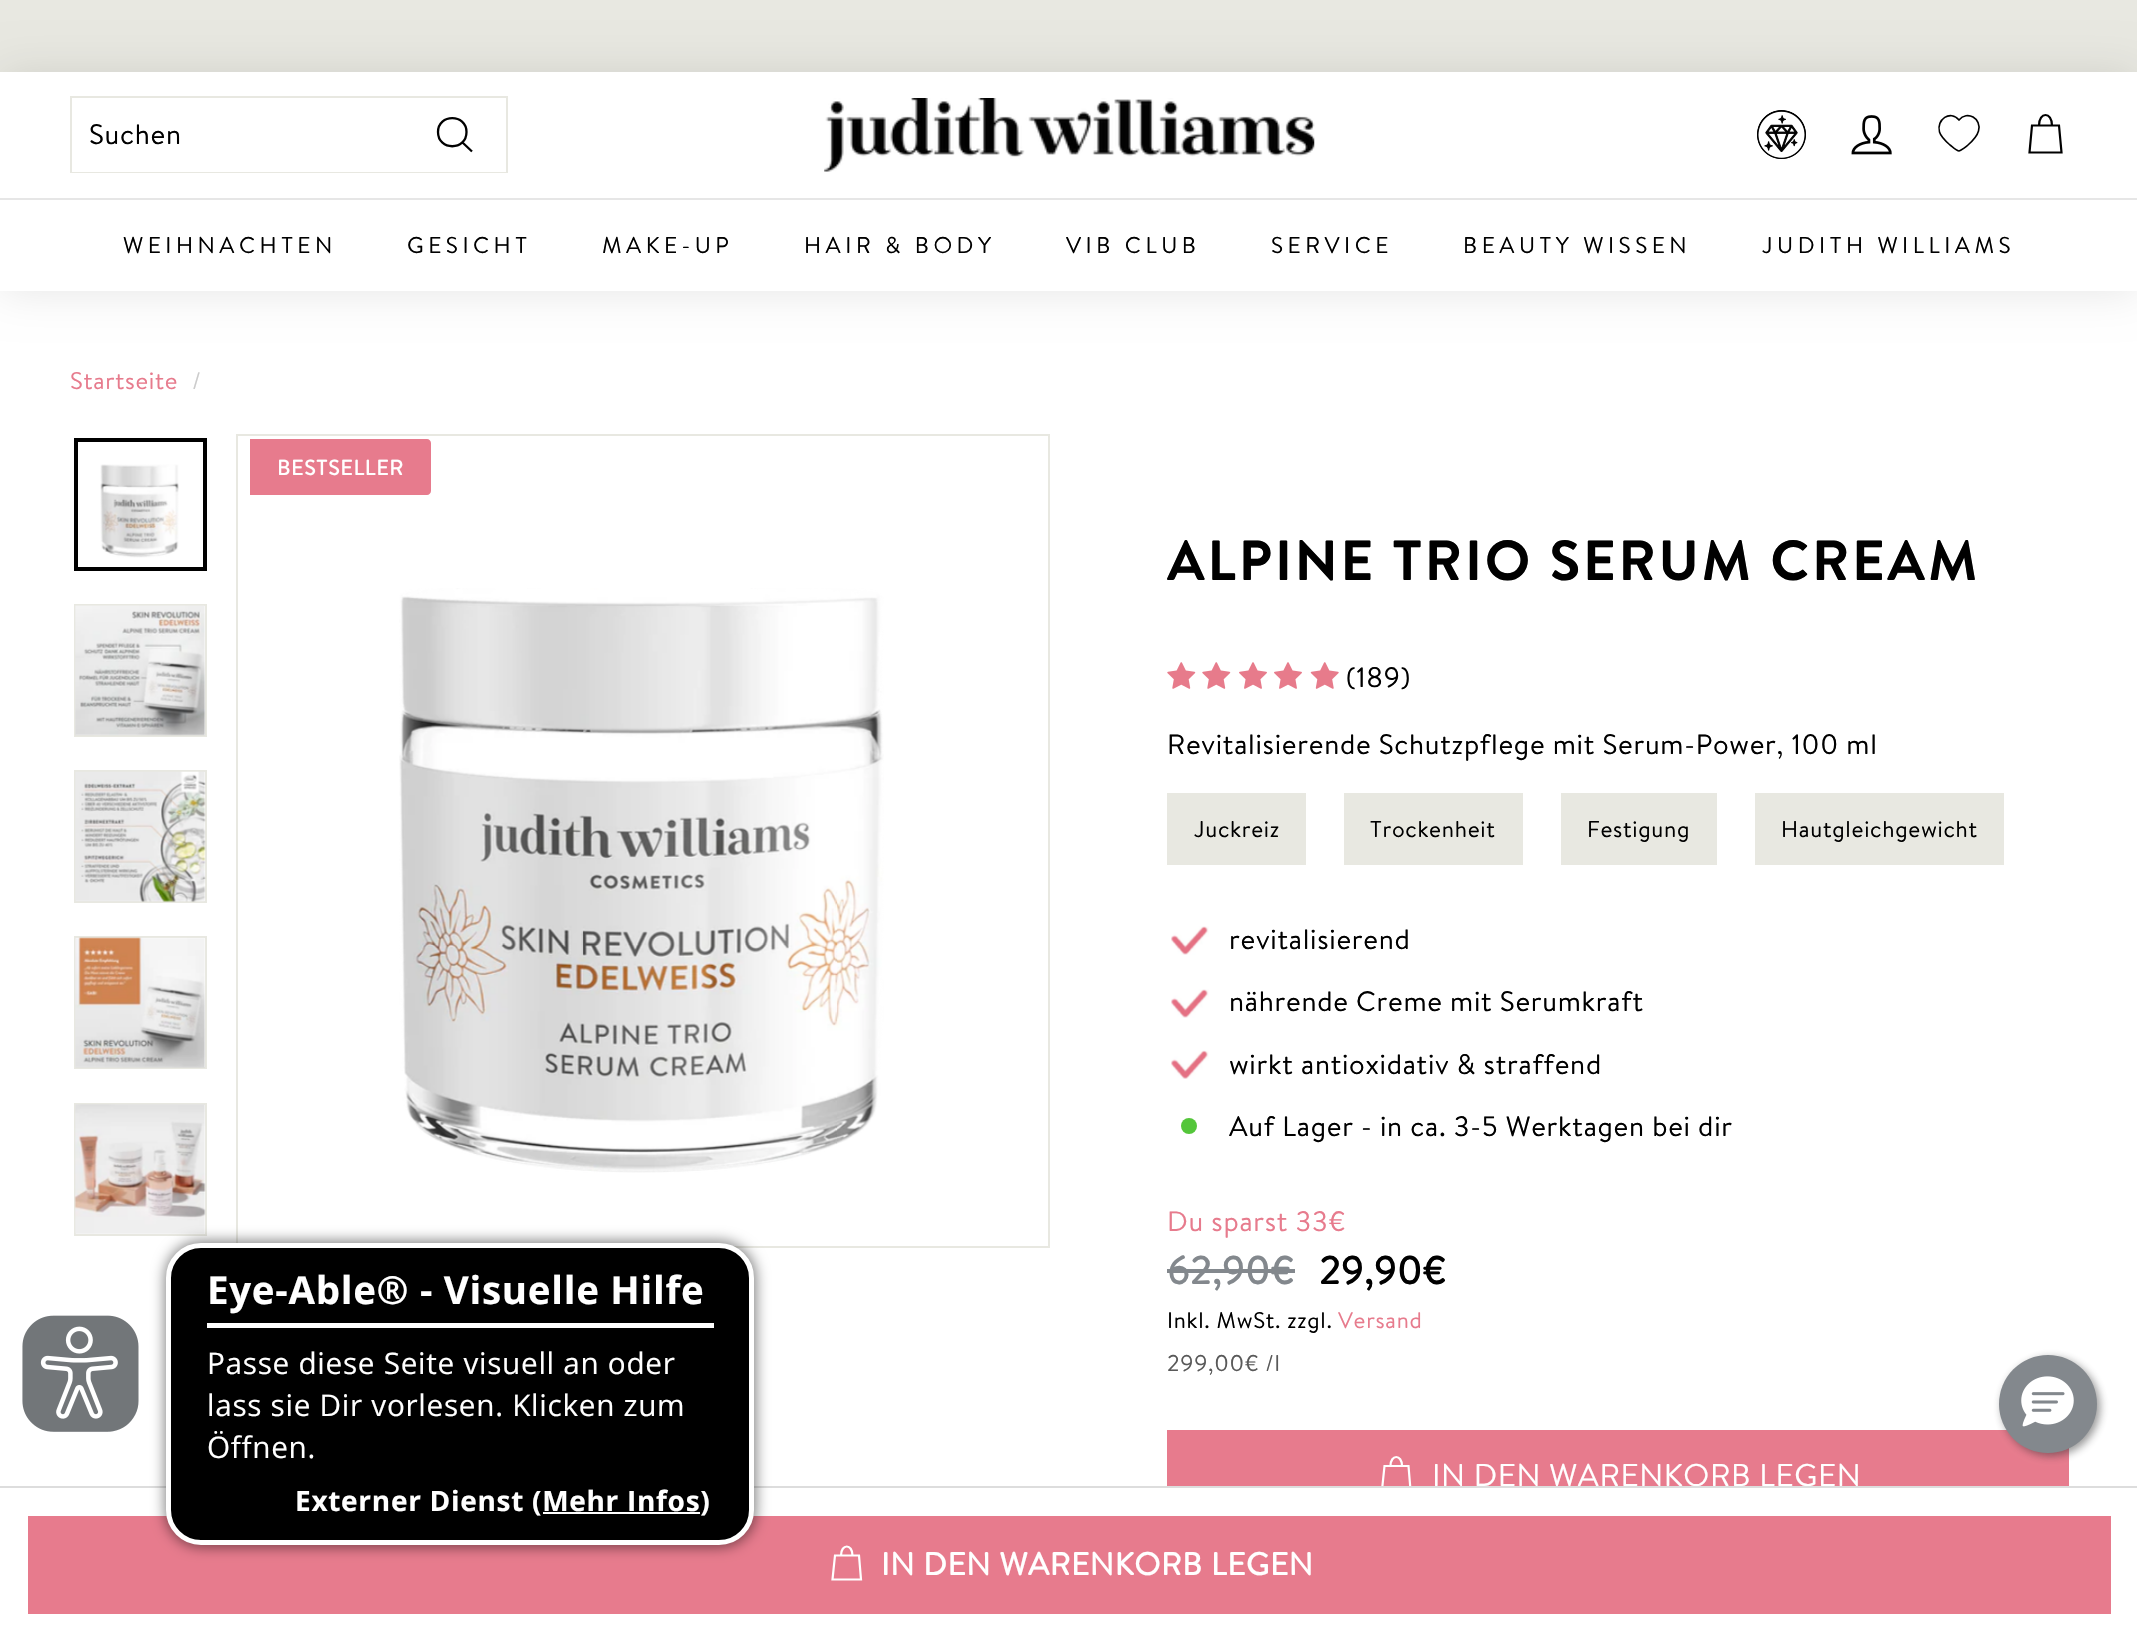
void draw(SkCanvas* canvas) {
	SkPaint paint;
	paint.setAntiAlias(true);
	auto spacedText = [&](const char* s, float x, float y, const SkFont& font, const SkPaint& ink, float letter, float word) {
		std::vector<SkGlyphID> glyphs(font.countText(s, strlen(s), SkTextEncoding::kUTF8));
		std::vector<float> xs(glyphs.size());
		font.textToGlyphs(s, strlen(s), SkTextEncoding::kUTF8, glyphs);
		font.getXPos(glyphs, xs, x);
		float extra = 0;
		for (size_t i = 0; i < glyphs.size(); i++) {
			xs[i] += extra;
			extra += letter + word * (glyphs[i] == font.unicharToGlyph(' '));
		}
		canvas->drawTextBlob(SkTextBlob::MakeFromPosHGlyphs(glyphs, xs, y, font), 0, 0, ink);
	};
	auto svgPath = [&](const char* data, bool evenOdd = false) {
		SkPath result = *SkParsePath::FromSVGString(data);
		if (evenOdd) result.setFillType(SkPathFillType::kEvenOdd);
		return result;
	};
	canvas->clear(0xffffffff);
	paint.setColor(0xffe8e8e1);
	canvas->drawRect(SkRect::MakeXYWH(0, 0, 2137, 72), paint);
	paint.setColor(0x1a000000);
	paint.setMaskFilter(SkMaskFilter::MakeBlur(kNormal_SkBlurStyle, 22));
	canvas->drawRect(SkRect::MakeXYWH(0, 72, 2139, 126), paint);
	paint.setMaskFilter(nullptr);
	paint.setMaskFilter(SkMaskFilter::MakeBlur(kNormal_SkBlurStyle, 22));
	canvas->drawRect(SkRect::MakeXYWH(0, 198, 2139, 93), paint);
	paint.setMaskFilter(nullptr);
	paint.setColor(0xffffffff);
	canvas->drawRect(SkRect::MakeXYWH(0, 72, 2137, 126), paint);
	paint.setStroke(true);
	paint.setStrokeWidth(2);
	paint.setColor(0xffe8e8e1);
	canvas->drawRect(SkRect::MakeXYWH(71, 97, 436, 75), paint);
	paint.setStroke(false);
	paint.setColor(0xffffffff);
	canvas->drawRect(SkRect::MakeXYWH(72, 171, 434, 1), paint);
	SkFont f1(fontMgr->matchFamilyStyle("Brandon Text", SkFontStyle::Normal()), 28);
	f1.setSubpixel(true);
	paint.setColor(0xff000000);
	spacedText("Suchen", 89, 144, f1, paint, 0.7, 0);
	paint.setStroke(true);
	paint.setStrokeWidth(2.3);
	canvas->drawPath(svgPath("M466.5 132C466.5 151 438 151 438 132C438 113.5 466.5 113.5 466.5 132ZM472 151.5L462.5 142.5"), paint);
	canvas->drawImageRect(SkImages::DeferredFromEncodedData(SkData::MakeFromFileName("img1.png")), SkRect::MakeXYWH(824, 98, 491, 74), SkSamplingOptions());
	canvas->drawImageRect(SkImages::DeferredFromEncodedData(SkData::MakeFromFileName("img2.png")), SkRect::MakeXYWH(1757, 110, 49, 49), SkSamplingOptions());
	canvas->drawImageRect(SkImages::DeferredFromEncodedData(SkData::MakeFromFileName("img3.png")), SkRect::MakeXYWH(1851, 115, 41, 40), SkSamplingOptions());
	paint.setStrokeWidth(1.6);
	canvas->drawPath(svgPath("M1959 151C1956.5 151 1952 146.5 1950 145C1946 141.5 1941 137 1939.5 132C1936 119.5 1950.5 109.5 1959 120C1967 110 1982 118.5 1978.5 131C1977 136.5 1972.5 141 1968 145C1967 146 1961.5 150.5 1959 151Z"), paint);
	paint.setStrokeWidth(2.2);
	canvas->drawPath(svgPath("M2039 125.5C2039 111.5 2052 111.5 2052 125.5M2032 125.5H2059L2061.5 152.5H2029.5Z"), paint);
	paint.setStroke(false);
	paint.setColor(0xffffffff);
	canvas->drawRect(SkRect::MakeXYWH(0, 200, 2137, 91), paint);
	paint.setColor(0xffe6e6e6);
	canvas->drawRect(SkRect::MakeXYWH(0, 198, 2137, 2), paint);
	SkFont f2(fontMgr->matchFamilyStyle("Brandon Text", SkFontStyle::Normal()), 22.75);
	f2.setSubpixel(true);
	paint.setColor(0xff000000);
	spacedText("WEIHNACHTEN", 123, 253, f2, paint, 4.5, 0);
	spacedText("GESICHT", 407, 253, f2, paint, 4.5, 0);
	spacedText("MAKE-UP", 602, 253, f2, paint, 4.5, 0);
	spacedText("HAIR & BODY", 804, 253, f2, paint, 4.5, 0);
	spacedText("VIB CLUB", 1066, 253, f2, paint, 4.5, 0);
	spacedText("SERVICE", 1271, 253, f2, paint, 4.5, 0);
	spacedText("BEAUTY WISSEN", 1463, 253, f2, paint, 4.5, 0);
	spacedText("JUDITH WILLIAMS", 1762, 253, f2, paint, 4.5, 0);
	SkFont f3(fontMgr->matchFamilyStyle("Brandon Text", SkFontStyle::Normal()), 24);
	f3.setSubpixel(true);
	paint.setColor(0xffe77b8d);
	spacedText("Startseite", 70, 389, f3, paint, 0.7, 0);
	paint.setColor(0xffcccccc);
	spacedText("/", 192, 389, f3, paint, 0.7, 0);
	canvas->drawImageRect(SkImages::DeferredFromEncodedData(SkData::MakeFromFileName("img4.png")), SkRect::MakeXYWH(100, 464, 79, 94), SkSamplingOptions());
	paint.setStroke(true);
	paint.setStrokeWidth(4);
	paint.setColor(0xff000000);
	canvas->drawRect(SkRect::MakeXYWH(76, 440, 129, 129), paint);
	paint.setStrokeWidth(2);
	paint.setColor(0xffe8e8e1);
	canvas->drawRect(SkRect::MakeXYWH(75, 605, 131, 131), paint);
	canvas->drawImageRect(SkImages::DeferredFromEncodedData(SkData::MakeFromFileName("img5.png")), SkRect::MakeXYWH(75, 605, 131, 131), SkSamplingOptions());
	canvas->drawRect(SkRect::MakeXYWH(75, 771, 131, 131), paint);
	canvas->drawImageRect(SkImages::DeferredFromEncodedData(SkData::MakeFromFileName("img6.png")), SkRect::MakeXYWH(75, 771, 131, 131), SkSamplingOptions());
	canvas->drawRect(SkRect::MakeXYWH(75, 937, 131, 131), paint);
	canvas->drawImageRect(SkImages::DeferredFromEncodedData(SkData::MakeFromFileName("img7.png")), SkRect::MakeXYWH(75, 937, 131, 131), SkSamplingOptions());
	canvas->drawRect(SkRect::MakeXYWH(75, 1104, 131, 131), paint);
	canvas->drawImageRect(SkImages::DeferredFromEncodedData(SkData::MakeFromFileName("img8.png")), SkRect::MakeXYWH(74, 1104, 132, 130), SkSamplingOptions());
	canvas->drawRect(SkRect::MakeXYWH(237, 435, 812, 812), paint);
	canvas->drawImageRect(SkImages::DeferredFromEncodedData(SkData::MakeFromFileName("img9.png")), SkRect::MakeXYWH(399, 588, 485, 585), SkSamplingOptions());
	paint.setStroke(false);
	paint.setColor(0xffe77b8d);
	canvas->drawPath(svgPath("M250 439H427C429 439 431 441 431 443V491C431 493 429 495 427 495H250Z"), paint);
	SkFont f4(fontMgr->matchFamilyStyle("Brandon Text", SkFontStyle::Bold()), 21);
	f4.setSubpixel(true);
	paint.setColor(0xffffffff);
	spacedText("BESTSELLER", 277, 475, f4, paint, 1, 0);
	SkFont f5(fontMgr->matchFamilyStyle("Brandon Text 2", SkFontStyle::Bold()), 56.5);
	f5.setSubpixel(true);
	paint.setColor(0xff000000);
	spacedText("ALPINE TRIO SERUM CREAM", 1167, 580, f5, paint, 2.8, 0);
	canvas->drawImageRect(SkImages::DeferredFromEncodedData(SkData::MakeFromFileName("img10.png")), SkRect::MakeXYWH(1167, 662, 29, 27), SkSamplingOptions());
	canvas->drawImageRect(SkImages::DeferredFromEncodedData(SkData::MakeFromFileName("img10.png")), SkRect::MakeXYWH(1202, 662, 29, 27), SkSamplingOptions());
	canvas->drawImageRect(SkImages::DeferredFromEncodedData(SkData::MakeFromFileName("img11.png")), SkRect::MakeXYWH(1239, 662, 28, 27), SkSamplingOptions());
	canvas->drawImageRect(SkImages::DeferredFromEncodedData(SkData::MakeFromFileName("img11.png")), SkRect::MakeXYWH(1274, 662, 28, 27), SkSamplingOptions());
	canvas->drawImageRect(SkImages::DeferredFromEncodedData(SkData::MakeFromFileName("img12.png")), SkRect::MakeXYWH(1310, 662, 29, 27), SkSamplingOptions());
	spacedText("(189)", 1346, 687, f1, paint, 0.7, 0);
	spacedText("Revitalisierende Schutzpflege mit Serum-Power, 100 ml", 1167, 754, f1, paint, 0.7, 0);
	paint.setColor(0xffe8e8e1);
	canvas->drawRect(SkRect::MakeXYWH(1167, 793, 139, 72), paint);
	paint.setColor(0xff000000);
	spacedText("Juckreiz", 1194, 837, f2, paint, 0.7, 0);
	paint.setColor(0xffe8e8e1);
	canvas->drawRect(SkRect::MakeXYWH(1344, 793, 179, 72), paint);
	paint.setColor(0xff000000);
	spacedText("Trockenheit", 1370, 837, f2, paint, 0.7, 0);
	paint.setColor(0xffe8e8e1);
	canvas->drawRect(SkRect::MakeXYWH(1561, 793, 156, 72), paint);
	paint.setColor(0xff000000);
	spacedText("Festigung", 1587, 837, f2, paint, 0.7, 0);
	paint.setColor(0xffe8e8e1);
	canvas->drawRect(SkRect::MakeXYWH(1755, 793, 249, 72), paint);
	paint.setColor(0xff000000);
	spacedText("Hautgleichgewicht", 1781, 837, f2, paint, 0.7, 0);
	canvas->drawImageRect(SkImages::DeferredFromEncodedData(SkData::MakeFromFileName("img13.png")), SkRect::MakeXYWH(1171, 926, 38, 29), SkSamplingOptions());
	spacedText("revitalisierend", 1229, 949, f1, paint, 0.7, 0);
	canvas->drawImageRect(SkImages::DeferredFromEncodedData(SkData::MakeFromFileName("img13.png")), SkRect::MakeXYWH(1171, 989, 38, 29), SkSamplingOptions());
	spacedText("nährende Creme mit Serumkraft", 1229, 1011, f1, paint, 0.7, 0);
	canvas->drawImageRect(SkImages::DeferredFromEncodedData(SkData::MakeFromFileName("img14.png")), SkRect::MakeXYWH(1171, 1050, 38, 29), SkSamplingOptions());
	spacedText("wirkt antioxidativ & straffend", 1229, 1074, f1, paint, 0.7, 0);
	paint.setColor(0xff54c63a);
	canvas->drawCircle(1189, 1126, 8, paint);
	paint.setColor(0xff000000);
	spacedText("Auf Lager - in ca. 3-5 Werktagen bei dir", 1229, 1136, f1, paint, 0.7, 0);
	paint.setColor(0xffe77b8d);
	spacedText("Du sparst 33€", 1167, 1231, f1, paint, 0.7, 0);
	SkFont f6(fontMgr->matchFamilyStyle("Brandon Text", SkFontStyle::Bold()), 38.5);
	f6.setSubpixel(true);
	paint.setColor(0xff83888d);
	spacedText("62,90€", 1167, 1284, f6, paint, 0.7, 0);
	canvas->drawRect(SkRect::MakeXYWH(1167, 1269, 128, 4), paint);
	paint.setColor(0xff000000);
	spacedText("29,90€", 1319, 1284, f6, paint, 0.7, 0);
	SkFont f7(fontMgr->matchFamilyStyle("Brandon Text", SkFontStyle::Normal()), 22.5);
	f7.setSubpixel(true);
	spacedText("Inkl. MwSt. zzgl.", 1167, 1328, f7, paint, 0.7, 0);
	paint.setColor(0xffe77b8d);
	spacedText("Versand", 1338, 1328, f7, paint, 0.7, 0);
	paint.setColor(0xff595959);
	spacedText("299,00€ /l", 1167, 1371, f2, paint, 0.7, 0);
	paint.setColor(0xffe77b8d);
	canvas->drawRect(SkRect::MakeXYWH(1167, 1430, 902, 56), paint);
	paint.setStroke(true);
	paint.setStrokeWidth(2.2);
	paint.setColor(0xffffffff);
	canvas->drawPath(svgPath("M1390.5 1466C1390.5 1454 1402 1454 1402 1466M1384.5 1466H1408.5L1410.5 1490H1382Z"), paint);
	SkFont f8(fontMgr->matchFamilyStyle("Brandon Text", SkFontStyle::Normal()), 31.5);
	f8.setSubpixel(true);
	paint.setStroke(false);
	spacedText("IN DEN WARENKORB LEGEN", 1432, 1486, f8, paint, 0.6, 0);
	canvas->drawImageRect(SkImages::DeferredFromEncodedData(SkData::MakeFromFileName("img15.png")), SkRect::MakeXYWH(22, 1315, 117, 117), SkSamplingOptions());
	paint.setColor(0xffdddddd);
	canvas->drawRect(SkRect::MakeXYWH(0, 1486, 2137, 2), paint);
	paint.setColor(0xffe77b8d);
	canvas->drawRect(SkRect::MakeXYWH(28, 1516, 2083, 98), paint);
	paint.setColor(0x80000000);
	paint.setMaskFilter(SkMaskFilter::MakeBlur(kNormal_SkBlurStyle, 7));
	canvas->drawRoundRect(SkRect::MakeXYWH(165, 1241, 591, 306), 37, 37, paint);
	paint.setMaskFilter(nullptr);
	paint.setColor(0xff000000);
	canvas->drawRoundRect(SkRect::MakeXYWH(168.5, 1245.5, 583, 297), 32.5, 32.5, paint);
	paint.setStroke(true);
	paint.setStrokeWidth(5);
	paint.setColor(0xffffffff);
	canvas->drawRoundRect(SkRect::MakeXYWH(168.5, 1245.5, 583, 297), 32.5, 32.5, paint);
	paint.setStroke(false);
	canvas->drawRect(SkRect::MakeXYWH(207, 1323, 507, 5), paint);
	SkFont f9(fontMgr->matchFamilyStyle("Open Sans", SkFontStyle::Bold()), 38.5);
	f9.setSubpixel(true);
	spacedText("Eye-Able® - Visuelle Hilfe", 207, 1304, f9, paint, 0.7, 0);
	SkFont f10(fontMgr->matchFamilyStyle("Open Sans", SkFontStyle::Normal()), 29.75);
	f10.setSubpixel(true);
	spacedText("Passe diese Seite visuell an oder", 207, 1374, f10, paint, 0.7, 0);
	spacedText("lass sie Dir vorlesen. Klicken zum", 207, 1416, f10, paint, 0.7, 0);
	spacedText("Öffnen.", 207, 1458, f10, paint, 0.7, 0);
	SkFont f11(fontMgr->matchFamilyStyle("Open Sans", SkFontStyle::Bold()), 28);
	f11.setSubpixel(true);
	spacedText("Externer Dienst (Mehr Infos)", 295, 1511, f11, paint, 0.7, 0);
	canvas->drawRect(SkRect::MakeXYWH(543, 1512, 157, 2), paint);
	paint.setColor(0x802d2d2d);
	paint.setMaskFilter(SkMaskFilter::MakeBlur(kNormal_SkBlurStyle, 4.5));
	canvas->drawRoundRect(SkRect::MakeXYWH(2002, 1358, 98, 98), 49, 49, paint);
	paint.setMaskFilter(nullptr);
	paint.setColor(0xff83888d);
	canvas->drawCircle(2048, 1404, 49, paint);
	canvas->drawImageRect(SkImages::DeferredFromEncodedData(SkData::MakeFromFileName("img16.png")), SkRect::MakeXYWH(2021, 1376, 53, 51), SkSamplingOptions());
	paint.setStroke(true);
	paint.setStrokeWidth(2.2);
	paint.setColor(0xffffffff);
	canvas->drawPath(svgPath("M841 1555.5C841 1543.5 852.5 1543.5 852.5 1555.5M835 1555.5H859L861 1579.5H832.5Z"), paint);
	SkFont f12(fontMgr->matchFamilyStyle("Brandon Text", SkFontStyle::Bold()), 31.5);
	f12.setSubpixel(true);
	paint.setStroke(false);
	spacedText("IN DEN WARENKORB LEGEN", 881, 1575, f12, paint, 0.75, 0);
}
